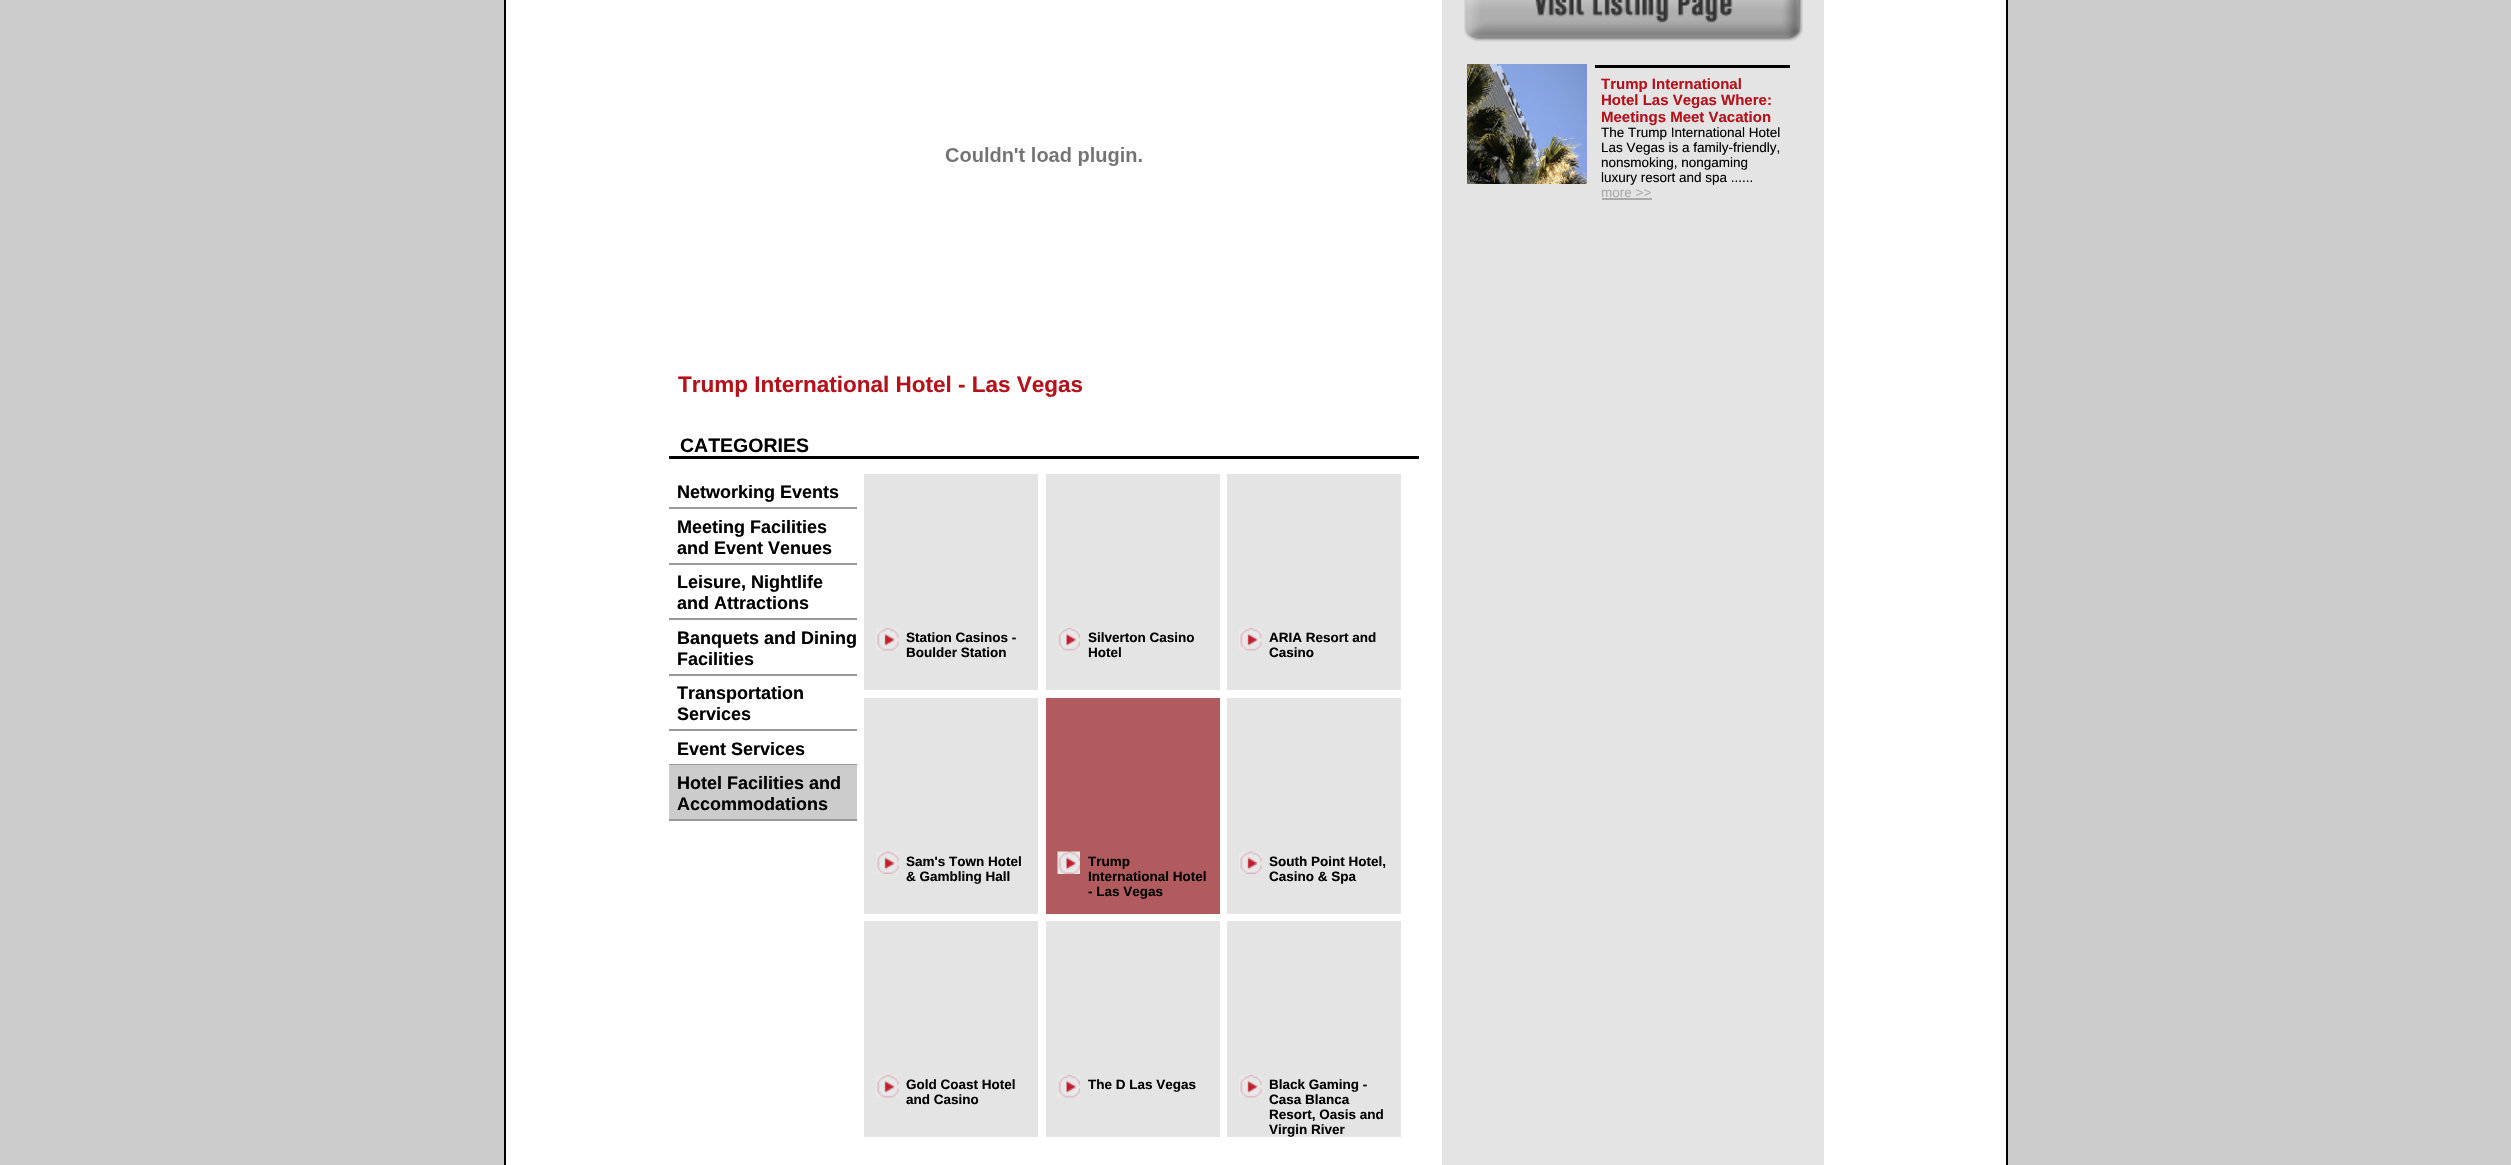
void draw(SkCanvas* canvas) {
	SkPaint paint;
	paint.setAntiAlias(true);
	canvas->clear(0xffcccccc);
	paint.setColor(0xffffffff);
	canvas->drawRect(SkRect::MakeXYWH(506, 0, 1500, 1165), paint);
	paint.setColor(0xff000000);
	canvas->drawRect(SkRect::MakeXYWH(2006, 0, 2, 1165), paint);
	canvas->drawRect(SkRect::MakeXYWH(504, 0, 2, 1165), paint);
	paint.setColor(0xffe4e4e4);
	canvas->drawRect(SkRect::MakeXYWH(1442, 0, 382, 1165), paint);
	canvas->drawImageRect(SkImages::DeferredFromEncodedData(SkData::MakeFromFileName("img1.png")), SkRect::MakeXYWH(1464, 0, 339, 42), SkSamplingOptions());
	canvas->drawImageRect(SkImages::DeferredFromEncodedData(SkData::MakeFromFileName("img2.png")), SkRect::MakeXYWH(1467, 64, 120, 120), SkSamplingOptions());
	paint.setColor(0xff000000);
	canvas->drawRect(SkRect::MakeXYWH(1595, 65, 195, 3), paint);
	SkFont f1(fontMgr->matchFamilyStyle("Liberation Sans", SkFontStyle::Bold()), 15);
	f1.setSubpixel(true);
	paint.setColor(0xffb5121b);
	canvas->drawString("Trump International", 1601, 89, f1, paint);
	canvas->drawString("Hotel Las Vegas Where:", 1601, 105, f1, paint);
	canvas->drawString("Meetings Meet Vacation", 1601, 122, f1, paint);
	SkFont f2(fontMgr->matchFamilyStyle("Liberation Sans", SkFontStyle::Normal()), 13.5);
	f2.setSubpixel(true);
	paint.setColor(0xff000000);
	canvas->drawString("The Trump International Hotel", 1601, 137, f2, paint);
	canvas->drawString("Las Vegas is a family-friendly,", 1601, 152, f2, paint);
	canvas->drawString("nonsmoking, nongaming", 1601, 167, f2, paint);
	canvas->drawString("luxury resort and spa ......", 1601, 182, f2, paint);
	paint.setColor(0xffaaaaaa);
	canvas->drawString("more >>", 1601, 197, f2, paint);
	canvas->drawRect(SkRect::MakeXYWH(1602, 198, 50, 2), paint);
	canvas->drawImageRect(SkImages::DeferredFromEncodedData(SkData::MakeFromFileName("img3.png")), SkRect::MakeXYWH(945, 147, 197, 19), SkSamplingOptions());
	SkFont f3(fontMgr->matchFamilyStyle("Liberation Sans", SkFontStyle::Bold()), 22.5);
	f3.setSubpixel(true);
	paint.setColor(0xffb5121b);
	canvas->drawString("Trump International Hotel - Las Vegas", 678, 392, f3, paint);
	paint.setColor(0xff000000);
	canvas->drawRect(SkRect::MakeXYWH(669, 456, 750, 3), paint);
	SkFont f4(fontMgr->matchFamilyStyle("Liberation Sans", SkFontStyle::Bold()), 19.5);
	f4.setSubpixel(true);
	canvas->drawString("CATEGORIES", 680, 452, f4, paint);
	paint.setColor(0xff999999);
	canvas->drawRect(SkRect::MakeXYWH(669, 507, 188, 2), paint);
	SkFont f5(fontMgr->matchFamilyStyle("Liberation Sans", SkFontStyle::Bold()), 18);
	f5.setSubpixel(true);
	paint.setColor(0xff000000);
	canvas->drawString("Networking Events", 677, 498, f5, paint);
	paint.setColor(0xff999999);
	canvas->drawRect(SkRect::MakeXYWH(669, 563, 188, 2), paint);
	paint.setColor(0xff000000);
	canvas->drawString("Meeting Facilities", 677, 533, f5, paint);
	canvas->drawString("and Event Venues", 677, 554, f5, paint);
	paint.setColor(0xff999999);
	canvas->drawRect(SkRect::MakeXYWH(669, 618, 188, 2), paint);
	paint.setColor(0xff000000);
	canvas->drawString("Leisure, Nightlife", 677, 588, f5, paint);
	canvas->drawString("and Attractions", 677, 609, f5, paint);
	paint.setColor(0xff999999);
	canvas->drawRect(SkRect::MakeXYWH(669, 674, 188, 2), paint);
	paint.setColor(0xff000000);
	canvas->drawString("Banquets and Dining", 677, 644, f5, paint);
	canvas->drawString("Facilities", 677, 665, f5, paint);
	paint.setColor(0xff999999);
	canvas->drawRect(SkRect::MakeXYWH(669, 729, 188, 2), paint);
	paint.setColor(0xff000000);
	canvas->drawString("Transportation", 677, 699, f5, paint);
	canvas->drawString("Services", 677, 720, f5, paint);
	paint.setColor(0xff999999);
	canvas->drawRect(SkRect::MakeXYWH(669, 764, 188, 1), paint);
	paint.setColor(0xff000000);
	canvas->drawString("Event Services", 677, 755, f5, paint);
	paint.setColor(0xffcccccc);
	canvas->drawRect(SkRect::MakeXYWH(669, 765, 188, 54), paint);
	paint.setColor(0xff999999);
	canvas->drawRect(SkRect::MakeXYWH(669, 819, 188, 2), paint);
	paint.setColor(0xff000000);
	canvas->drawString("Hotel Facilities and", 677, 789, f5, paint);
	canvas->drawString("Accommodations", 677, 810, f5, paint);
	paint.setColor(0xffe4e4e4);
	canvas->drawRect(SkRect::MakeXYWH(864, 474, 174, 216), paint);
	canvas->drawImageRect(SkImages::DeferredFromEncodedData(SkData::MakeFromFileName("img4.png")), SkRect::MakeXYWH(876, 628, 23, 23), SkSamplingOptions());
	SkFont f6(fontMgr->matchFamilyStyle("Liberation Sans", SkFontStyle::Bold()), 13.5);
	f6.setSubpixel(true);
	paint.setColor(0xff000000);
	canvas->drawString("Station Casinos -", 906, 642, f6, paint);
	canvas->drawString("Boulder Station", 906, 657, f6, paint);
	paint.setColor(0xffe4e4e4);
	canvas->drawRect(SkRect::MakeXYWH(1046, 474, 174, 216), paint);
	canvas->drawImageRect(SkImages::DeferredFromEncodedData(SkData::MakeFromFileName("img5.png")), SkRect::MakeXYWH(1058, 628, 22, 23), SkSamplingOptions());
	paint.setColor(0xff000000);
	canvas->drawString("Silverton Casino", 1088, 642, f6, paint);
	canvas->drawString("Hotel", 1088, 657, f6, paint);
	paint.setColor(0xffe4e4e4);
	canvas->drawRect(SkRect::MakeXYWH(1227, 474, 174, 216), paint);
	canvas->drawImageRect(SkImages::DeferredFromEncodedData(SkData::MakeFromFileName("img6.png")), SkRect::MakeXYWH(1239, 628, 23, 23), SkSamplingOptions());
	paint.setColor(0xff000000);
	canvas->drawString("ARIA Resort and", 1269, 642, f6, paint);
	canvas->drawString("Casino", 1269, 657, f6, paint);
	paint.setColor(0xffe4e4e4);
	canvas->drawRect(SkRect::MakeXYWH(864, 698, 174, 216), paint);
	canvas->drawImageRect(SkImages::DeferredFromEncodedData(SkData::MakeFromFileName("img7.png")), SkRect::MakeXYWH(876, 851, 23, 23), SkSamplingOptions());
	paint.setColor(0xff000000);
	canvas->drawString("Sam's Town Hotel", 906, 866, f6, paint);
	canvas->drawString("& Gambling Hall", 906, 881, f6, paint);
	paint.setColor(0xffb25b5f);
	canvas->drawRect(SkRect::MakeXYWH(1046, 698, 174, 216), paint);
	canvas->drawImageRect(SkImages::DeferredFromEncodedData(SkData::MakeFromFileName("img8.png")), SkRect::MakeXYWH(1057, 851, 23, 23), SkSamplingOptions());
	canvas->save();
	canvas->clipRect(SkRect::MakeXYWH(1088, 854, 120, 45));
	paint.setColor(0xff000000);
	canvas->drawString("Trump", 1088, 866, f6, paint);
	canvas->restore();
	canvas->drawString("International Hotel", 1088, 881, f6, paint);
	canvas->drawString("- Las Vegas", 1088, 896, f6, paint);
	paint.setColor(0xffe4e4e4);
	canvas->drawRect(SkRect::MakeXYWH(1227, 698, 174, 216), paint);
	canvas->drawImageRect(SkImages::DeferredFromEncodedData(SkData::MakeFromFileName("img9.png")), SkRect::MakeXYWH(1239, 851, 23, 23), SkSamplingOptions());
	paint.setColor(0xff000000);
	canvas->drawString("South Point Hotel,", 1269, 866, f6, paint);
	canvas->drawString("Casino & Spa", 1269, 881, f6, paint);
	paint.setColor(0xffe4e4e4);
	canvas->drawRect(SkRect::MakeXYWH(864, 921, 174, 216), paint);
	canvas->drawImageRect(SkImages::DeferredFromEncodedData(SkData::MakeFromFileName("img4.png")), SkRect::MakeXYWH(876, 1075, 23, 23), SkSamplingOptions());
	paint.setColor(0xff000000);
	canvas->drawString("Gold Coast Hotel", 906, 1089, f6, paint);
	canvas->drawString("and Casino", 906, 1104, f6, paint);
	paint.setColor(0xffe4e4e4);
	canvas->drawRect(SkRect::MakeXYWH(1046, 921, 174, 216), paint);
	canvas->drawImageRect(SkImages::DeferredFromEncodedData(SkData::MakeFromFileName("img5.png")), SkRect::MakeXYWH(1058, 1075, 22, 23), SkSamplingOptions());
	canvas->save();
	canvas->clipRect(SkRect::MakeXYWH(1088, 1077, 120, 15));
	paint.setColor(0xff000000);
	canvas->drawString("The D Las Vegas", 1088, 1089, f6, paint);
	canvas->restore();
	paint.setColor(0xffe4e4e4);
	canvas->drawRect(SkRect::MakeXYWH(1227, 921, 174, 216), paint);
	canvas->drawImageRect(SkImages::DeferredFromEncodedData(SkData::MakeFromFileName("img6.png")), SkRect::MakeXYWH(1239, 1075, 23, 23), SkSamplingOptions());
	paint.setColor(0xff000000);
	canvas->drawString("Black Gaming -", 1269, 1089, f6, paint);
	canvas->drawString("Casa Blanca", 1269, 1104, f6, paint);
	canvas->drawString("Resort, Oasis and", 1269, 1119, f6, paint);
	canvas->drawString("Virgin River", 1269, 1134, f6, paint);
}
